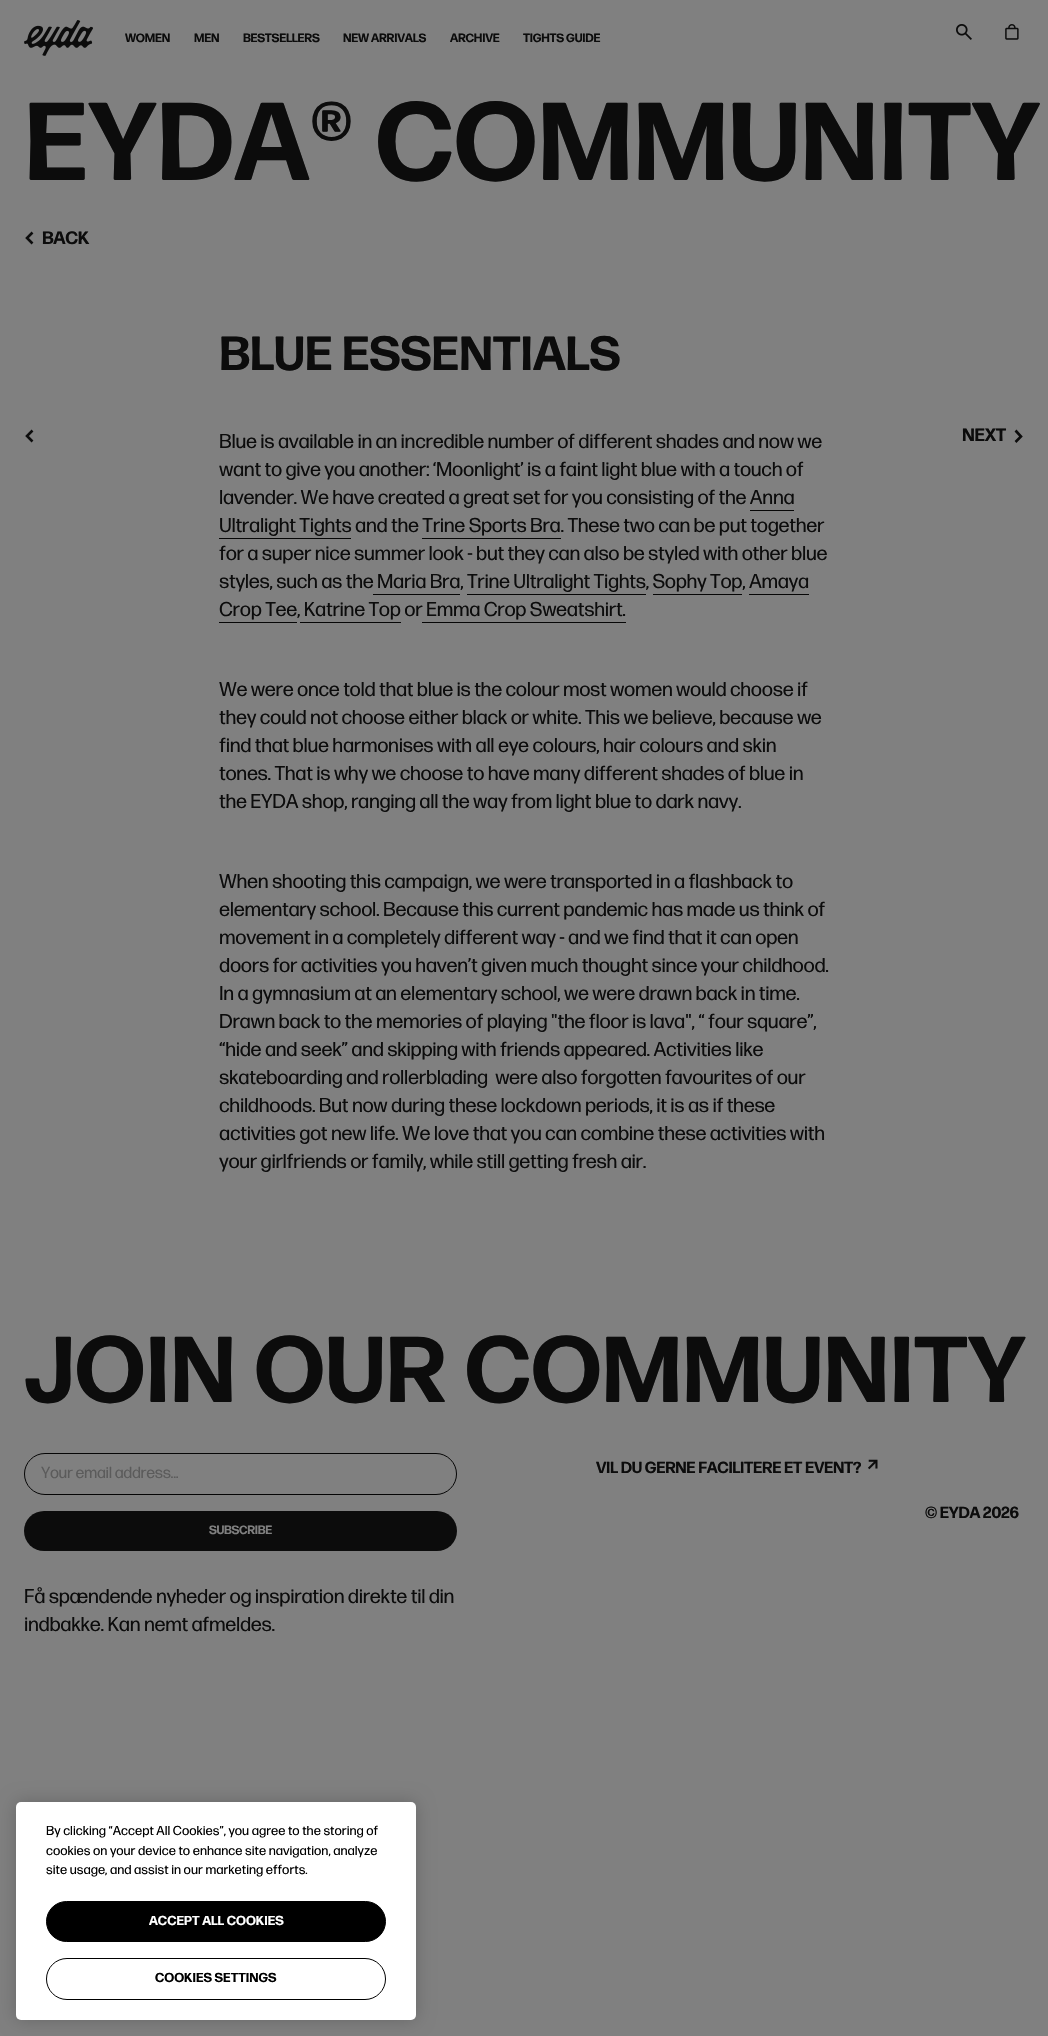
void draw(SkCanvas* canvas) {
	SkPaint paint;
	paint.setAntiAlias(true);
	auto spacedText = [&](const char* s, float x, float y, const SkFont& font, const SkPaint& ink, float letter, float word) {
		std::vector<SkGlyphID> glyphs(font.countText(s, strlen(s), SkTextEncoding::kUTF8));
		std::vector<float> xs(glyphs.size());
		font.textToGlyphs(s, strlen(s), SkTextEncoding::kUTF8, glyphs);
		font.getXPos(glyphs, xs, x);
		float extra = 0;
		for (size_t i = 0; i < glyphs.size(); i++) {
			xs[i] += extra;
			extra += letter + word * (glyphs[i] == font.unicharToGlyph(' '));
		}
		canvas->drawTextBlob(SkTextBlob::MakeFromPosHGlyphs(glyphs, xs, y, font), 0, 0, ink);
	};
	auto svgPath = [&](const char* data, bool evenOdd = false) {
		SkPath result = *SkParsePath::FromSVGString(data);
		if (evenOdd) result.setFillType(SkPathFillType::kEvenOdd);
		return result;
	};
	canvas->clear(0xff808080);
	canvas->drawImageRect(SkImages::DeferredFromEncodedData(SkData::MakeFromFileName("img1.png")), SkRect::MakeXYWH(24, 20, 69, 36), SkSamplingOptions());
	SkFont f1(fontMgr->matchFamilyStyle("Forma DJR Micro", SkFontStyle::Bold()), 12);
	f1.setSubpixel(true);
	paint.setColor(0xff0c0c0c);
	spacedText("WOMEN", 125, 42, f1, paint, -0.25, 0);
	spacedText("MEN", 194, 42, f1, paint, -0.25, 0);
	spacedText("BESTSELLERS", 243, 42, f1, paint, -0.25, 0);
	spacedText("NEW ARRIVALS", 343, 42, f1, paint, -0.25, 0);
	spacedText("ARCHIVE", 450, 42, f1, paint, -0.25, 0);
	spacedText("TIGHTS GUIDE", 523, 42, f1, paint, -0.25, 0);
	canvas->drawImageRect(SkImages::DeferredFromEncodedData(SkData::MakeFromFileName("img2.png")), SkRect::MakeXYWH(956, 24, 16, 16), SkSamplingOptions());
	canvas->drawImageRect(SkImages::DeferredFromEncodedData(SkData::MakeFromFileName("img3.png")), SkRect::MakeXYWH(1005, 24, 14, 16), SkSamplingOptions());
	SkFont f2(fontMgr->matchFamilyStyle("Forma DJR Micro", SkFontStyle::Bold()), 110.4);
	f2.setSubpixel(true);
	spacedText("EYDA® COMMUNITY", 24, 180, f2, paint, -0.32, 0);
	paint.setStroke(true);
	paint.setStrokeWidth(2.6);
	canvas->drawPath(svgPath("M32.5 232.5L27 238L32.5 243.5"), paint);
	SkFont f3(fontMgr->matchFamilyStyle("Forma DJR Micro", SkFontStyle::Bold()), 18);
	f3.setSubpixel(true);
	paint.setStroke(false);
	spacedText("BACK", 42, 244, f3, paint, -0.32, 0);
	paint.setStroke(true);
	canvas->drawPath(svgPath("M32.5 430.5L27 436L32.5 441.5"), paint);
	SkFont f4(fontMgr->matchFamilyStyle("Forma DJR Micro", SkFontStyle::Bold()), 48);
	f4.setSubpixel(true);
	paint.setStroke(false);
	spacedText("BLUE ESSENTIALS", 219, 370, f4, paint, -0.32, 0);
	SkFont f5(fontMgr->matchFamilyStyle("Forma DJR Micro", SkFontStyle::Normal()), 20);
	f5.setSubpixel(true);
	spacedText("Blue is available in an incredible number of different shades and now we", 219, 448, f5, paint, -0.32, 0);
	spacedText("want to give you another: ‘Moonlight’ is a faint light blue with a touch of", 219, 476, f5, paint, -0.32, 0);
	spacedText("lavender. We have created a great set for you consisting of the Anna", 219, 504, f5, paint, -0.32, 0);
	spacedText("Ultralight Tights and the Trine Sports Bra. These two can be put together", 219, 532, f5, paint, -0.32, 0);
	paint.setColor(0xff060606);
	canvas->drawRect(SkRect::MakeXYWH(750, 510, 44, 1), paint);
	canvas->drawRect(SkRect::MakeXYWH(219, 538, 132, 1), paint);
	canvas->drawRect(SkRect::MakeXYWH(422, 538, 139, 1), paint);
	paint.setColor(0xff0c0c0c);
	spacedText("for a super nice summer look - but they can also be styled with other blue", 219, 560, f5, paint, -0.32, 0);
	spacedText("styles, such as the Maria Bra, Trine Ultralight Tights, Sophy Top, Amaya", 219, 588, f5, paint, -0.32, 0);
	paint.setColor(0xff060606);
	canvas->drawRect(SkRect::MakeXYWH(373, 594, 87, 1), paint);
	canvas->drawRect(SkRect::MakeXYWH(467, 594, 179, 1), paint);
	canvas->drawRect(SkRect::MakeXYWH(653, 594, 89, 1), paint);
	paint.setColor(0xff0c0c0c);
	spacedText("Crop Tee, Katrine Top or Emma Crop Sweatshirt.", 219, 616, f5, paint, -0.32, 0);
	paint.setColor(0xff060606);
	canvas->drawRect(SkRect::MakeXYWH(749, 594, 60, 1), paint);
	canvas->drawRect(SkRect::MakeXYWH(219, 622, 78, 1), paint);
	canvas->drawRect(SkRect::MakeXYWH(300, 622, 101, 1), paint);
	canvas->drawRect(SkRect::MakeXYWH(422, 622, 204, 1), paint);
	paint.setColor(0xff0c0c0c);
	spacedText("We were once told that blue is the colour most women would choose if", 219, 696, f5, paint, -0.32, 0);
	spacedText("they could not choose either black or white. This we believe, because we", 219, 724, f5, paint, -0.32, 0);
	spacedText("find that blue harmonises with all eye colours, hair colours and skin", 219, 752, f5, paint, -0.32, 0);
	spacedText("tones. That is why we choose to have many different shades of blue in", 219, 780, f5, paint, -0.32, 0);
	spacedText("the EYDA shop, ranging all the way from light blue to dark navy.", 219, 808, f5, paint, -0.32, 0);
	spacedText("When shooting this campaign, we were transported in a flashback to", 219, 888, f5, paint, -0.32, 0);
	spacedText("elementary school. Because this current pandemic has made us think of", 219, 916, f5, paint, -0.32, 0);
	spacedText("movement in a completely different way - and we find that it can open", 219, 944, f5, paint, -0.32, 0);
	spacedText("doors for activities you haven’t given much thought since your childhood.", 219, 972, f5, paint, -0.32, 0);
	spacedText("In a gymnasium at an elementary school, we were drawn back in time.", 219, 1000, f5, paint, -0.32, 0);
	spacedText("Drawn back to the memories of playing \"the floor is lava\", “ four square”,", 219, 1028, f5, paint, -0.32, 0);
	spacedText("“hide and seek” and skipping with friends appeared. Activities like", 219, 1056, f5, paint, -0.32, 0);
	spacedText("skateboarding and rollerblading  were also forgotten favourites of our", 219, 1084, f5, paint, -0.32, 0);
	spacedText("childhoods. But now during these lockdown periods, it is as if these", 219, 1112, f5, paint, -0.32, 0);
	spacedText("activities got new life. We love that you can combine these activities with", 219, 1140, f5, paint, -0.32, 0);
	spacedText("your girlfriends or family, while still getting fresh air.", 219, 1168, f5, paint, -0.32, 0);
	spacedText("NEXT", 962, 441, f3, paint, -0.32, 0);
	paint.setStroke(true);
	canvas->drawPath(svgPath("M1015.5 442L1021 436.5L1015.5 430.5"), paint);
	SkFont f6(fontMgr->matchFamilyStyle("Forma DJR Micro", SkFontStyle::Bold()), 93.25);
	f6.setSubpixel(true);
	paint.setStroke(false);
	spacedText("JOIN OUR COMMUNITY", 24, 1402, f6, paint, -0.32, 0);
	paint.setStroke(true);
	paint.setStrokeWidth(1);
	paint.setColor(0xff050505);
	canvas->drawRoundRect(SkRect::MakeXYWH(24.5, 1453.5, 432, 41), 20.5, 20.5, paint);
	SkFont f7(fontMgr->matchFamilyStyle("Forma DJR Micro", SkFontStyle::Normal()), 16);
	f7.setSubpixel(true);
	paint.setStroke(false);
	paint.setColor(0xff5b5b5b);
	spacedText("Your email address...", 41, 1478, f7, paint, -0.32, 0);
	paint.setColor(0xff0c0c0c);
	canvas->drawRoundRect(SkRect::MakeXYWH(24, 1511, 433, 40), 20, 20, paint);
	paint.setColor(0xff808080);
	spacedText("SUBSCRIBE", 209, 1534, f1, paint, -0.32, 0);
	paint.setColor(0xff0c0c0c);
	spacedText("Få spændende nyheder og inspiration direkte til din", 24, 1603, f5, paint, -0.32, 0);
	spacedText("indbakke. Kan nemt afmeldes.", 24, 1631, f5, paint, -0.32, 0);
	SkFont f8(fontMgr->matchFamilyStyle("Forma DJR Micro", SkFontStyle::Bold()), 16);
	f8.setSubpixel(true);
	spacedText("VIL DU GERNE FACILITERE ET EVENT?", 596, 1473, f8, paint, -0.32, 0);
	canvas->drawImageRect(SkImages::DeferredFromEncodedData(SkData::MakeFromFileName("img4.png")), SkRect::MakeXYWH(868, 1459, 10, 11), SkSamplingOptions());
	spacedText("© EYDA 2026", 925, 1518, f8, paint, -0.32, 0);
	paint.setColor(0x33000000);
	paint.setMaskFilter(SkMaskFilter::MakeBlur(kNormal_SkBlurStyle, 9));
	canvas->drawRoundRect(SkRect::MakeXYWH(16, 1802, 400, 218), 5, 5, paint);
	paint.setMaskFilter(nullptr);
	paint.setColor(0xffffffff);
	canvas->drawRoundRect(SkRect::MakeXYWH(16, 1802, 400, 218), 5, 5, paint);
	SkFont f9(fontMgr->matchFamilyStyle("Forma DJR Micro", SkFontStyle::Normal()), 13);
	f9.setSubpixel(true);
	paint.setColor(0xff000000);
	canvas->drawString("By clicking “Accept All Cookies”, you agree to the storing of", 46, 1835, f9, paint);
	canvas->drawString("cookies on your device to enhance site navigation, analyze", 46, 1855, f9, paint);
	canvas->drawString("site usage, and assist in our marketing efforts.", 46, 1874, f9, paint);
	canvas->drawRoundRect(SkRect::MakeXYWH(46.5, 1901.5, 339, 40), 20, 20, paint);
	paint.setStroke(true);
	canvas->drawRoundRect(SkRect::MakeXYWH(46.5, 1901.5, 339, 40), 20, 20, paint);
	SkFont f10(fontMgr->matchFamilyStyle("Forma DJR Micro", SkFontStyle::Bold()), 13);
	f10.setSubpixel(true);
	paint.setStroke(false);
	paint.setColor(0xffffffff);
	canvas->drawString("ACCEPT ALL COOKIES", 149, 1925, f10, paint);
	paint.setStroke(true);
	paint.setColor(0xff000000);
	canvas->drawRoundRect(SkRect::MakeXYWH(46.5, 1958.5, 339, 41), 20.5, 20.5, paint);
	paint.setStroke(false);
	canvas->drawString("COOKIES SETTINGS", 155, 1982, f10, paint);
}
